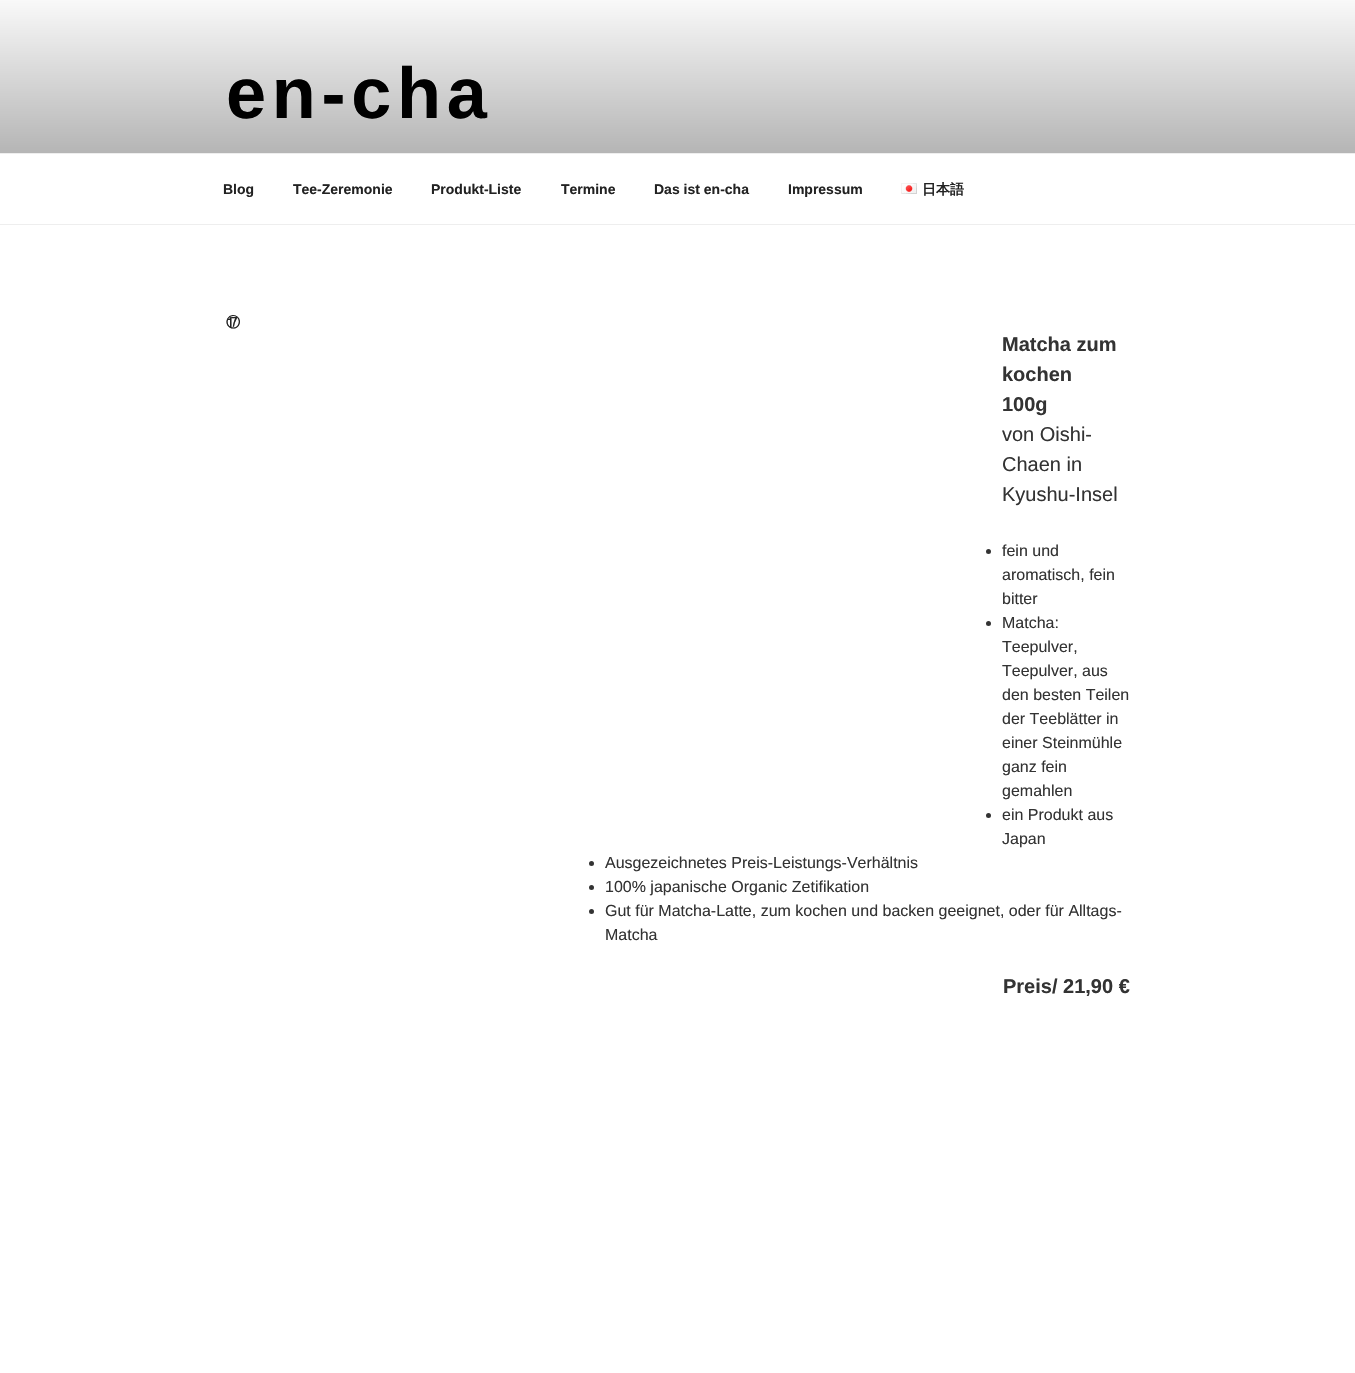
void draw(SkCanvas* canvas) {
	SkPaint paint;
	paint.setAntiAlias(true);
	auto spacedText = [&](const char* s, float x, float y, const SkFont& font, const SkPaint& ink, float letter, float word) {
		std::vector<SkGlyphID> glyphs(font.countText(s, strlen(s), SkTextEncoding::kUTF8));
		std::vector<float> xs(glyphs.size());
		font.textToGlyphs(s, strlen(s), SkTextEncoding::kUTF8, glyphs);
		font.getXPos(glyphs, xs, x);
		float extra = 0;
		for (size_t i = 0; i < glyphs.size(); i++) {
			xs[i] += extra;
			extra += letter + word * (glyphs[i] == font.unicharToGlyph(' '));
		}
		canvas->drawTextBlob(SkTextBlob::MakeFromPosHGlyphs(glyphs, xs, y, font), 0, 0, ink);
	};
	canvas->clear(0xffffffff);
	{
		const SkColor colors[] = {0xfff9f9f9, 0xffaeaeae, 0xffaeaeae};
		const float stops[] = {0, 0.75, 1};
		const SkPoint ends[] = {{678, 0}, {678, 225}};
		paint.setShader(SkGradientShader::MakeLinear(ends, colors, stops, 3, SkTileMode::kClamp));
		paint.setAlpha(255);
	}
	canvas->drawRect(SkRect::MakeXYWH(0, 0, 1355, 153), paint);
	SkFont f1(fontMgr->matchFamilyStyle("Liberation Sans", SkFontStyle::Bold()), 72);
	f1.setSubpixel(true);
	paint.setShader(nullptr);
	paint.setColor(0xff000000);
	spacedText("en-cha", 226, 118, f1, paint, 5.75, 0);
	paint.setColor(0xffeeeeee);
	canvas->drawRect(SkRect::MakeXYWH(0, 153, 1355, 1), paint);
	canvas->drawRect(SkRect::MakeXYWH(0, 224, 1355, 1), paint);
	SkFont f2(fontMgr->matchFamilyStyle("Liberation Sans", SkFontStyle::Bold()), 14);
	f2.setSubpixel(true);
	paint.setColor(0xff222222);
	canvas->drawString("Blog", 223, 194, f2, paint);
	canvas->drawString("Tee-Zeremonie", 293, 194, f2, paint);
	canvas->drawString("Produkt-Liste", 431, 194, f2, paint);
	canvas->drawString("Termine", 561, 194, f2, paint);
	canvas->drawString("Das ist en-cha", 654, 194, f2, paint);
	canvas->drawString("Impressum", 788, 194, f2, paint);
	canvas->drawImageRect(SkImages::DeferredFromEncodedData(SkData::MakeFromFileName("img1.png")), SkRect::MakeXYWH(901, 183, 16, 11), SkSamplingOptions());
	SkFont f3(fontMgr->matchFamilyStyle("WenQuanYi Zen Hei", SkFontStyle::Bold()), 14);
	f3.setSubpixel(true);
	canvas->drawString("日本語", 922, 194, f3, paint);
	spacedText("⑰", 226, 327, f3, paint, 2, 0);
	SkFont f4(fontMgr->matchFamilyStyle("Liberation Sans", SkFontStyle::Bold()), 20);
	f4.setSubpixel(true);
	paint.setColor(0xff333333);
	canvas->drawString("Matcha zum", 1002, 351, f4, paint);
	canvas->drawString("kochen", 1002, 381, f4, paint);
	canvas->drawString("100g", 1002, 411, f4, paint);
	SkFont f5(fontMgr->matchFamilyStyle("Liberation Sans", SkFontStyle::Normal()), 20);
	f5.setSubpixel(true);
	canvas->drawString("von Oishi-", 1002, 441, f5, paint);
	canvas->drawString("Chaen in", 1002, 471, f5, paint);
	canvas->drawString("Kyushu-Insel", 1002, 501, f5, paint);
	canvas->drawCircle(988.5, 551.5, 2.5, paint);
	SkFont f6(fontMgr->matchFamilyStyle("Liberation Sans", SkFontStyle::Normal()), 16);
	f6.setSubpixel(true);
	canvas->drawString("fein und", 1002, 556, f6, paint);
	canvas->drawString("aromatisch, fein", 1002, 580, f6, paint);
	canvas->drawString("bitter", 1002, 604, f6, paint);
	canvas->drawCircle(988.5, 623.5, 2.5, paint);
	canvas->drawString("Matcha:", 1002, 628, f6, paint);
	canvas->drawString("Teepulver,", 1002, 652, f6, paint);
	canvas->drawString("Teepulver, aus", 1002, 676, f6, paint);
	canvas->drawString("den besten Teilen", 1002, 700, f6, paint);
	canvas->drawString("der Teeblätter in", 1002, 724, f6, paint);
	canvas->drawString("einer Steinmühle", 1002, 748, f6, paint);
	canvas->drawString("ganz fein", 1002, 772, f6, paint);
	canvas->drawString("gemahlen", 1002, 796, f6, paint);
	canvas->drawCircle(988.5, 815.5, 2.5, paint);
	canvas->drawString("ein Produkt aus", 1002, 820, f6, paint);
	canvas->drawString("Japan", 1002, 844, f6, paint);
	canvas->drawCircle(591.5, 863.5, 2.5, paint);
	canvas->drawString("Ausgezeichnetes Preis-Leistungs-Verhältnis", 605, 868, f6, paint);
	canvas->drawCircle(591.5, 887.5, 2.5, paint);
	canvas->drawString("100% japanische Organic Zetifikation", 605, 892, f6, paint);
	canvas->drawCircle(591.5, 911.5, 2.5, paint);
	canvas->drawString("Gut für Matcha-Latte, zum kochen und backen geeignet, oder für Alltags-", 605, 916, f6, paint);
	canvas->drawString("Matcha", 605, 940, f6, paint);
	canvas->drawString("Preis/ 21,90 €", 1003, 993, f4, paint);
}
